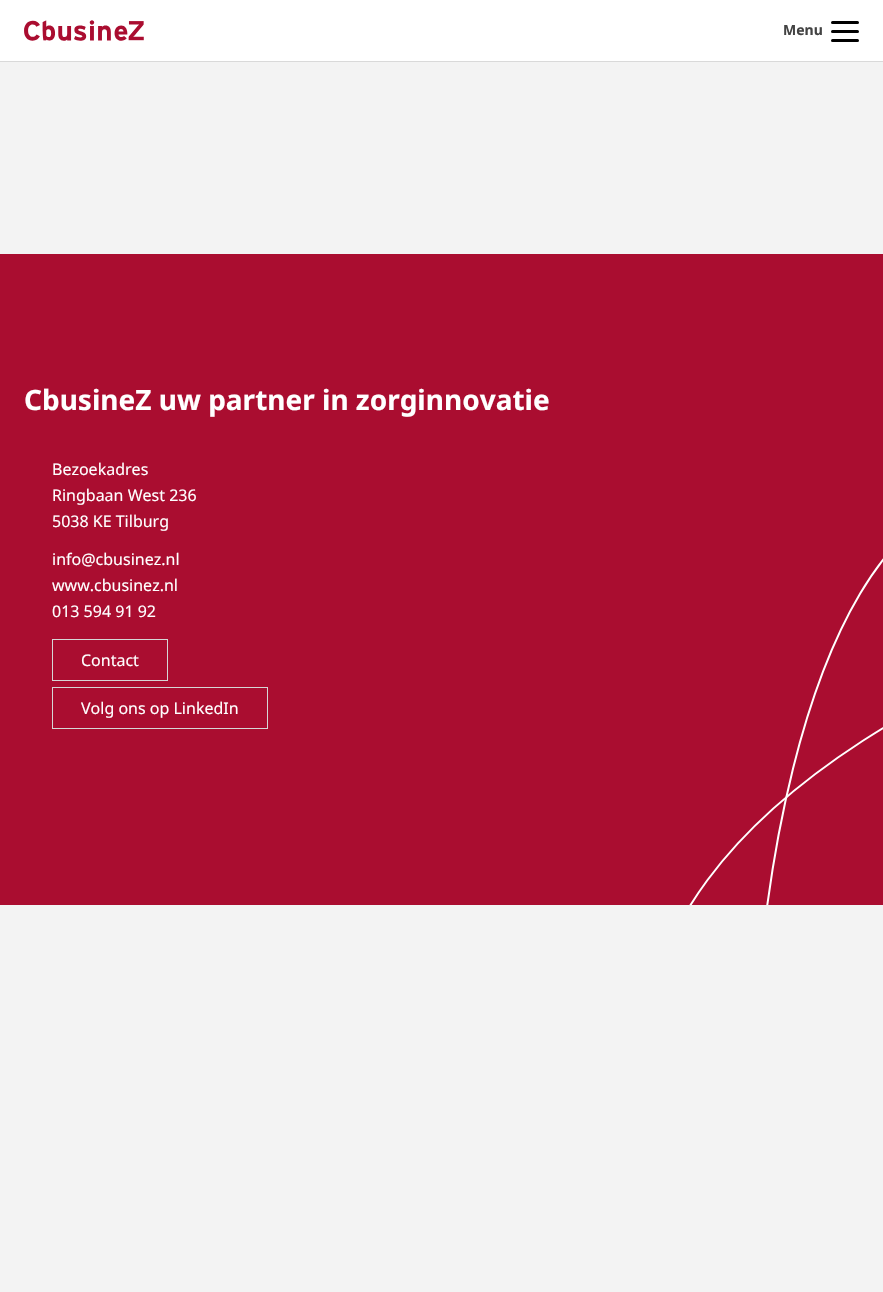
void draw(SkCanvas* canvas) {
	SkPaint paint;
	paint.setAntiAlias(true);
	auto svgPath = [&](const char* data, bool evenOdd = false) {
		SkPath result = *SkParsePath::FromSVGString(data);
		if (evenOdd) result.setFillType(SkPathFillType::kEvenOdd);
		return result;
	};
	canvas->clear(0xfff3f3f3);
	paint.setColor(0xffffffff);
	canvas->drawRect(SkRect::MakeXYWH(0, 0, 883, 61), paint);
	paint.setColor(0xffd9d9d9);
	canvas->drawRect(SkRect::MakeXYWH(0, 61, 883, 1), paint);
	canvas->drawImageRect(SkImages::DeferredFromEncodedData(SkData::MakeFromFileName("img1.png")), SkRect::MakeXYWH(24, 20, 120, 21), SkSamplingOptions());
	SkFont f1(fontMgr->matchFamilyStyle("Noto Sans", SkFontStyle::Bold()), 14);
	f1.setSubpixel(true);
	paint.setColor(0xff434343);
	canvas->drawString("Menu", 783, 35, f1, paint);
	paint.setColor(0xff000000);
	canvas->drawRoundRect(SkRect::MakeXYWH(831, 21, 28, 3), 1.5, 1.5, paint);
	canvas->drawRoundRect(SkRect::MakeXYWH(831, 30, 28, 3), 1.5, 1.5, paint);
	canvas->drawRoundRect(SkRect::MakeXYWH(831, 39, 28, 3), 1.5, 1.5, paint);
	paint.setColor(0xffaa0d30);
	canvas->drawRect(SkRect::MakeXYWH(0, 254, 883, 651), paint);
	SkFont f2(fontMgr->matchFamilyStyle("Noto Sans", SkFontStyle::Bold()), 28);
	f2.setSubpixel(true);
	paint.setColor(0xffffffff);
	canvas->drawString("CbusineZ uw partner in zorginnovatie", 24, 410, f2, paint);
	SkFont f3(fontMgr->matchFamilyStyle("Noto Sans", SkFontStyle::Normal()), 16);
	f3.setSubpixel(true);
	canvas->drawString("Bezoekadres", 52, 475, f3, paint);
	canvas->drawString("Ringbaan West 236", 52, 501, f3, paint);
	canvas->drawString("5038 KE Tilburg", 52, 527, f3, paint);
	canvas->drawString("info@cbusinez.nl", 52, 565, f3, paint);
	canvas->drawString("www.cbusinez.nl", 52, 591, f3, paint);
	canvas->drawString("013 594 91 92", 52, 617, f3, paint);
	paint.setStroke(true);
	paint.setStrokeWidth(1);
	paint.setColor(0xffd6d6d6);
	canvas->drawRect(SkRect::MakeXYWH(52.5, 639.5, 115, 41), paint);
	paint.setStroke(false);
	paint.setColor(0xffffffff);
	canvas->drawString("Contact", 81, 666, f3, paint);
	paint.setStroke(true);
	paint.setColor(0xffd6d6d6);
	canvas->drawRect(SkRect::MakeXYWH(52.5, 687.5, 215, 41), paint);
	paint.setStroke(false);
	paint.setColor(0xffffffff);
	canvas->drawString("Volg ons op LinkedIn", 81, 714, f3, paint);
	canvas->save();
	canvas->clipRect(SkRect::MakeXYWH(689, 558, 194, 347));
	paint.setStroke(true);
	paint.setStrokeWidth(2);
	canvas->drawPath(svgPath("M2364 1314C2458 932.5 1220 404 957 501.5C661 611.5 660.5 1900.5 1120 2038.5C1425.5 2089.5 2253 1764 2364 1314"), paint);
	canvas->drawPath(svgPath("M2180.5 617.5C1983 346.5 657 571.5 646.5 1046C682 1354.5 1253.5 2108.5 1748 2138.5"), paint);
	canvas->restore();
}
